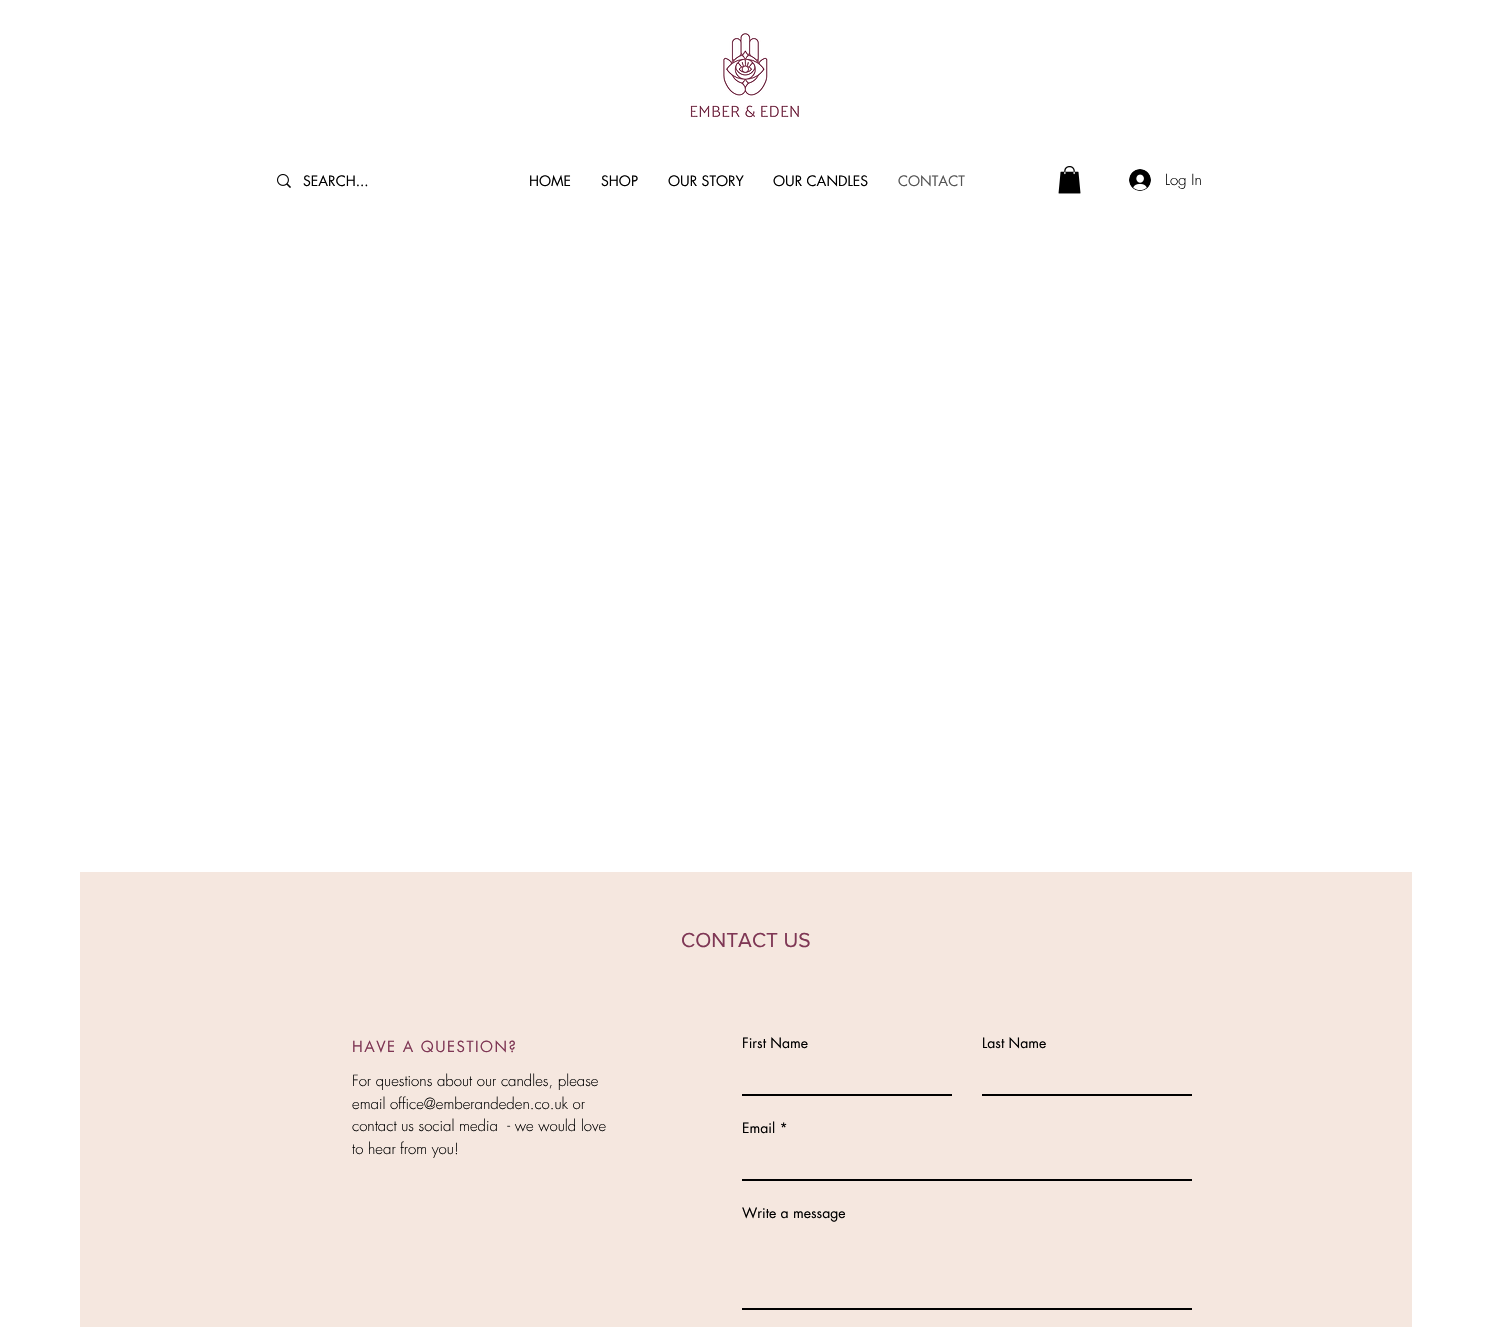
void draw(SkCanvas* canvas) {
	SkPaint paint;
	paint.setAntiAlias(true);
	auto spacedText = [&](const char* s, float x, float y, const SkFont& font, const SkPaint& ink, float letter, float word) {
		std::vector<SkGlyphID> glyphs(font.countText(s, strlen(s), SkTextEncoding::kUTF8));
		std::vector<float> xs(glyphs.size());
		font.textToGlyphs(s, strlen(s), SkTextEncoding::kUTF8, glyphs);
		font.getXPos(glyphs, xs, x);
		float extra = 0;
		for (size_t i = 0; i < glyphs.size(); i++) {
			xs[i] += extra;
			extra += letter + word * (glyphs[i] == font.unicharToGlyph(' '));
		}
		canvas->drawTextBlob(SkTextBlob::MakeFromPosHGlyphs(glyphs, xs, y, font), 0, 0, ink);
	};
	canvas->clear(0xffffffff);
	canvas->drawImageRect(SkImages::DeferredFromEncodedData(SkData::MakeFromFileName("img1.png")), SkRect::MakeXYWH(690, 31, 109, 87), SkSamplingOptions());
	canvas->drawImageRect(SkImages::DeferredFromEncodedData(SkData::MakeFromFileName("img2.png")), SkRect::MakeXYWH(277, 174, 14, 14), SkSamplingOptions());
	SkFont f1(fontMgr->matchFamilyStyle("futura", SkFontStyle::Normal()), 14);
	f1.setSubpixel(true);
	paint.setColor(0xff000000);
	canvas->drawString("SEARCH...", 303, 186, f1, paint);
	canvas->drawString("HOME", 529, 186, f1, paint);
	canvas->drawString("SHOP", 601, 186, f1, paint);
	canvas->drawString("OUR STORY", 668, 186, f1, paint);
	canvas->drawString("OUR CANDLES", 773, 186, f1, paint);
	paint.setColor(0xff555555);
	canvas->drawString("CONTACT", 898, 186, f1, paint);
	canvas->drawImageRect(SkImages::DeferredFromEncodedData(SkData::MakeFromFileName("img3.png")), SkRect::MakeXYWH(1058, 166, 23, 28), SkSamplingOptions());
	canvas->drawImageRect(SkImages::DeferredFromEncodedData(SkData::MakeFromFileName("img4.png")), SkRect::MakeXYWH(1129, 169, 22, 22), SkSamplingOptions());
	SkFont f2(fontMgr->matchFamilyStyle("futura", SkFontStyle(300, SkFontStyle::kNormal_Width, SkFontStyle::kUpright_Slant)), 15);
	f2.setSubpixel(true);
	paint.setColor(0xff000000);
	canvas->drawString("Log In", 1165, 185, f2, paint);
	paint.setColor(0xfff5e7df);
	canvas->drawRect(SkRect::MakeXYWH(80, 872, 1332, 455), paint);
	SkFont f3(fontMgr->matchFamilyStyle("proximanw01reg", SkFontStyle::Normal()), 21);
	f3.setSubpixel(true);
	paint.setColor(0xff7f3755);
	canvas->drawString("CONTACT US", 681, 947, f3, paint);
	SkFont f4(fontMgr->matchFamilyStyle("futura", SkFontStyle::Normal()), 15);
	f4.setSubpixel(true);
	spacedText("HAVE A QUESTION?", 352, 1052, f4, paint, 1.5, 0);
	paint.setColor(0xff000000);
	canvas->drawString("First Name", 742, 1048, f1, paint);
	canvas->drawRect(SkRect::MakeXYWH(742, 1094, 210, 2), paint);
	canvas->drawString("Last Name", 982, 1048, f1, paint);
	canvas->drawRect(SkRect::MakeXYWH(982, 1094, 210, 2), paint);
	canvas->drawString("Email *", 742, 1133, f1, paint);
	canvas->drawRect(SkRect::MakeXYWH(742, 1179, 450, 2), paint);
	canvas->drawString("Write a message", 742, 1218, f1, paint);
	canvas->drawRect(SkRect::MakeXYWH(742, 1308, 450, 2), paint);
	canvas->drawString("For questions about our candles, please", 352, 1086, f2, paint);
	canvas->drawString("email office@emberandeden.co.uk or", 352, 1109, f2, paint);
	canvas->drawString("contact us social media  - we would love", 352, 1131, f2, paint);
	canvas->drawString("to hear from you!", 352, 1154, f2, paint);
}
